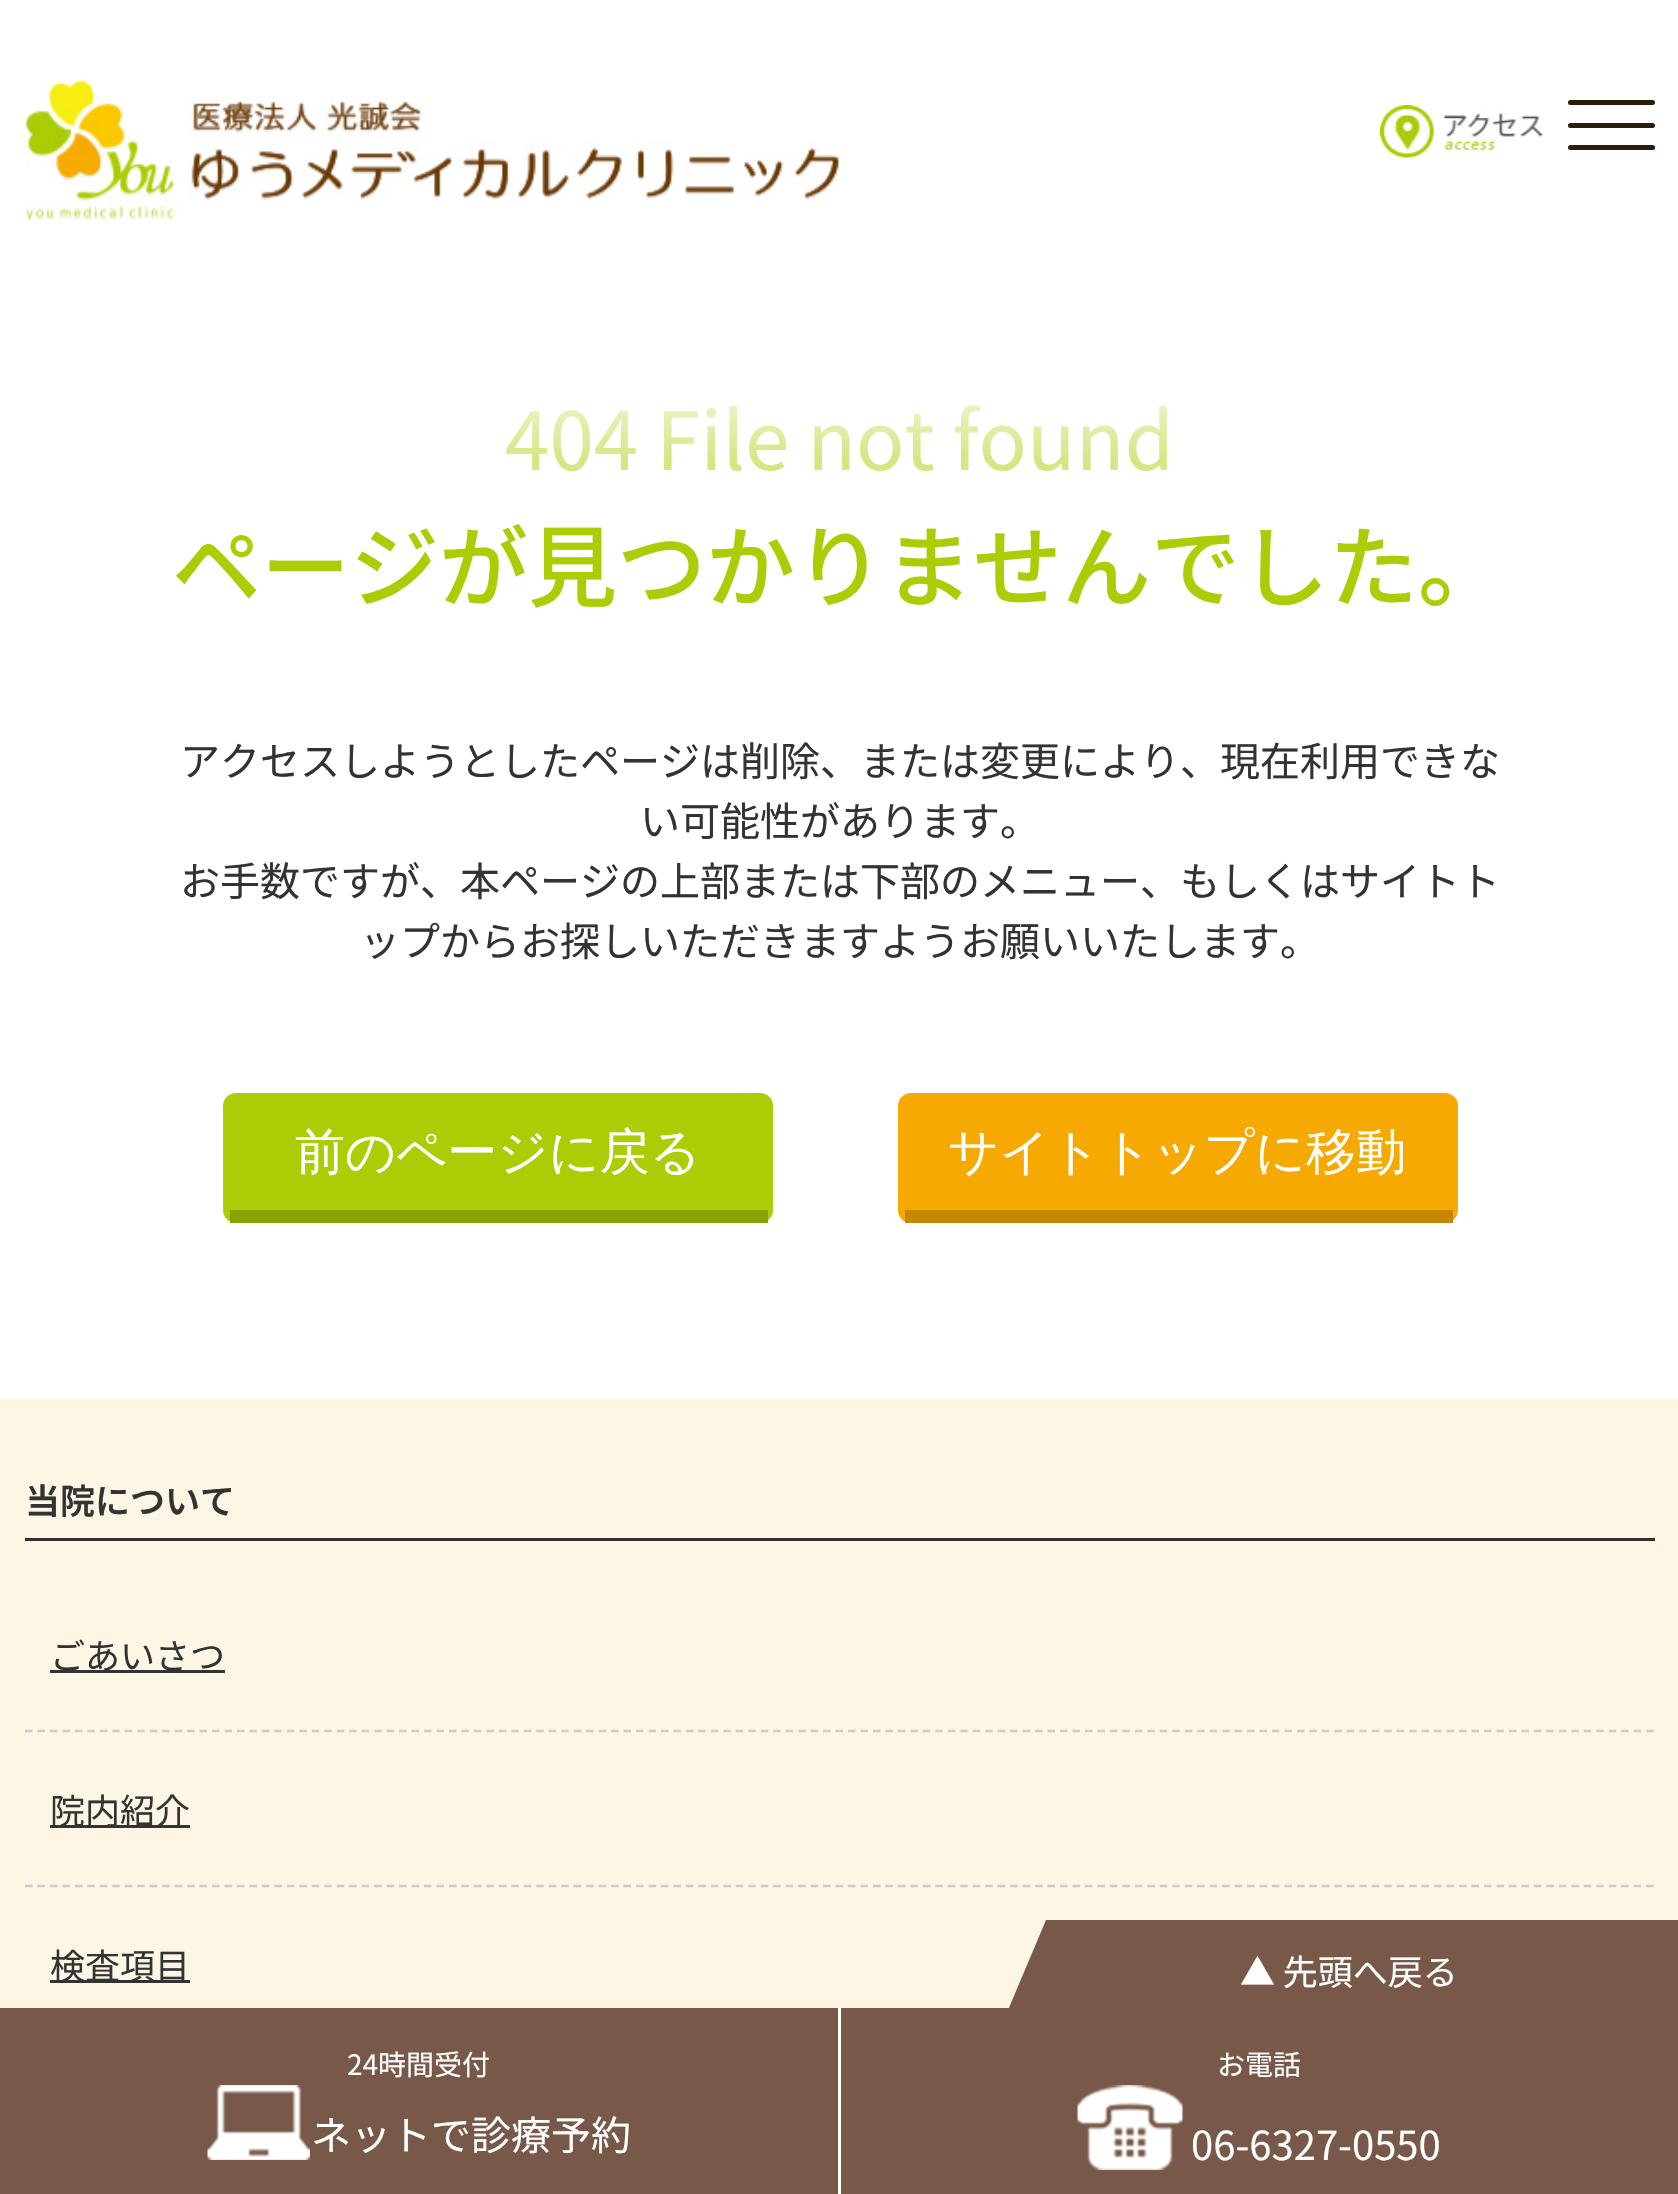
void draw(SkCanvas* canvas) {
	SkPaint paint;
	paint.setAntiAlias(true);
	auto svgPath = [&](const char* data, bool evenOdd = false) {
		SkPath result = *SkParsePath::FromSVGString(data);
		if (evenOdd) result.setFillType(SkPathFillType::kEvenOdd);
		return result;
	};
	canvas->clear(0xffffffff);
	canvas->drawImageRect(SkImages::DeferredFromEncodedData(SkData::MakeFromFileName("img1.png")), SkRect::MakeXYWH(25, 80, 814, 140), SkSamplingOptions());
	canvas->drawImageRect(SkImages::DeferredFromEncodedData(SkData::MakeFromFileName("img2.png")), SkRect::MakeXYWH(1380, 105, 163, 53), SkSamplingOptions());
	paint.setColor(0xff2a1d09);
	canvas->drawRoundRect(SkRect::MakeXYWH(1568, 100, 87, 5), 2.5, 2.5, paint);
	canvas->drawRoundRect(SkRect::MakeXYWH(1568, 123, 87, 5), 2.5, 2.5, paint);
	canvas->drawRoundRect(SkRect::MakeXYWH(1568, 145, 87, 5), 2.5, 2.5, paint);
	SkFont f1(fontMgr->matchFamilyStyle("Noto Sans JP", SkFontStyle::Normal()), 80);
	f1.setSubpixel(true);
	{
		const SkColor colors[] = {0xfff7fae6, 0xffd5e682, 0xffd5e682};
		const float stops[] = {0, 0.7, 1};
		const SkPoint ends[] = {{840, 375}, {840, 495}};
		paint.setShader(SkGradientShader::MakeLinear(ends, colors, stops, 3, SkTileMode::kClamp));
		paint.setAlpha(255);
	}
	canvas->drawString("404 File not found", 505, 470, f1, paint);
	SkFont f2(fontMgr->matchFamilyStyle("Noto Sans JP", SkFontStyle(500, SkFontStyle::kNormal_Width, SkFontStyle::kUpright_Slant)), 89);
	f2.setSubpixel(true);
	paint.setShader(nullptr);
	paint.setColor(0xffabcd05);
	canvas->drawString("ページが見つかりませんでした。", 172, 600, f2, paint);
	SkFont f3(fontMgr->matchFamilyStyle("Noto Sans JP", SkFontStyle::Normal()), 40);
	f3.setSubpixel(true);
	paint.setColor(0xff333333);
	canvas->drawString("アクセスしようとしたページは削除、または変更により、現在利用できな", 180, 776, f3, paint);
	canvas->drawString("い可能性があります。", 640, 836, f3, paint);
	canvas->drawString("お手数ですが、本ページの上部または下部のメニュー、もしくはサイトト", 180, 896, f3, paint);
	canvas->drawString("ップからお探しいただきますようお願いいたします。", 360, 956, f3, paint);
	paint.setColor(0xffabcd05);
	canvas->drawRoundRect(SkRect::MakeXYWH(223, 1093, 550, 130), 13, 13, paint);
	paint.setColor(0xff89a304);
	canvas->drawRect(SkRect::MakeXYWH(230, 1210, 538, 13), paint);
	SkFont f4(fontMgr->matchFamilyStyle("WenQuanYi Zen Hei", SkFontStyle(500, SkFontStyle::kNormal_Width, SkFontStyle::kUpright_Slant)), 50);
	f4.setSubpixel(true);
	paint.setColor(0xffffffff);
	canvas->drawString("前のページに戻る", 295, 1169, f4, paint);
	paint.setColor(0xfff6aa01);
	canvas->drawRoundRect(SkRect::MakeXYWH(898, 1093, 560, 130), 13, 13, paint);
	paint.setColor(0xffc58702);
	canvas->drawRect(SkRect::MakeXYWH(905, 1210, 548, 13), paint);
	paint.setColor(0xffffffff);
	canvas->drawString("サイトトップに移動", 948, 1169, f4, paint);
	paint.setColor(0xfffef6e5);
	canvas->drawRect(SkRect::MakeXYWH(0, 1398, 1678, 610), paint);
	paint.setColor(0xff333333);
	canvas->drawRect(SkRect::MakeXYWH(25, 1538, 1630, 3), paint);
	SkFont f5(fontMgr->matchFamilyStyle("Noto Sans JP", SkFontStyle(600, SkFontStyle::kNormal_Width, SkFontStyle::kUpright_Slant)), 35);
	f5.setSubpixel(true);
	canvas->drawString("当院について", 25, 1514, f5, paint);
	paint.setStroke(true);
	paint.setStrokeWidth(2.5);
	paint.setColor(0xffcccccc);
	paint.setPathEffect(SkDashPathEffect::Make({{7.5f, 4.97f}}, 0));
	canvas->drawPath(svgPath("M25 1731H1655"), paint);
	paint.setPathEffect(nullptr);
	paint.setStroke(false);
	paint.setColor(0xff333333);
	canvas->drawRect(SkRect::MakeXYWH(50, 1670, 175, 3), paint);
	SkFont f6(fontMgr->matchFamilyStyle("Noto Sans JP", SkFontStyle::Normal()), 35);
	f6.setSubpixel(true);
	canvas->drawString("ごあいさつ", 50, 1669, f6, paint);
	paint.setStroke(true);
	paint.setColor(0xffcccccc);
	paint.setPathEffect(SkDashPathEffect::Make({{7.5f, 4.97f}}, 0));
	canvas->drawPath(svgPath("M25 1886H1655"), paint);
	paint.setPathEffect(nullptr);
	paint.setStroke(false);
	paint.setColor(0xff333333);
	canvas->drawRect(SkRect::MakeXYWH(50, 1825, 140, 3), paint);
	canvas->drawString("院内紹介", 50, 1824, f6, paint);
	canvas->drawRect(SkRect::MakeXYWH(50, 1980, 140, 3), paint);
	canvas->drawString("検査項目", 50, 1979, f6, paint);
	paint.setColor(0xff785848);
	canvas->drawPath(svgPath("M1046 1920H1678V2010H1008Z"), paint);
	paint.setColor(0xffffffff);
	canvas->drawString("▲ 先頭へ戻る", 1240, 1985, f6, paint);
	paint.setColor(0xff785848);
	canvas->drawRect(SkRect::MakeXYWH(0, 2008, 1678, 186), paint);
	paint.setColor(0xffffffff);
	canvas->drawRect(SkRect::MakeXYWH(838, 2008, 3, 186), paint);
	SkFont f7(fontMgr->matchFamilyStyle("Noto Sans JP", SkFontStyle::Normal()), 28);
	f7.setSubpixel(true);
	canvas->drawString("24時間受付", 347, 2075, f7, paint);
	canvas->drawImageRect(SkImages::DeferredFromEncodedData(SkData::MakeFromFileName("img3.png")), SkRect::MakeXYWH(207, 2085, 103, 75), SkSamplingOptions());
	canvas->drawString("ネットで診療予約", 311, 2150, f3, paint);
	canvas->drawString("お電話", 1217, 2075, f7, paint);
	canvas->drawImageRect(SkImages::DeferredFromEncodedData(SkData::MakeFromFileName("img4.png")), SkRect::MakeXYWH(1077, 2085, 106, 85), SkSamplingOptions());
	canvas->drawString("06-6327-0550", 1191, 2160, f3, paint);
}
